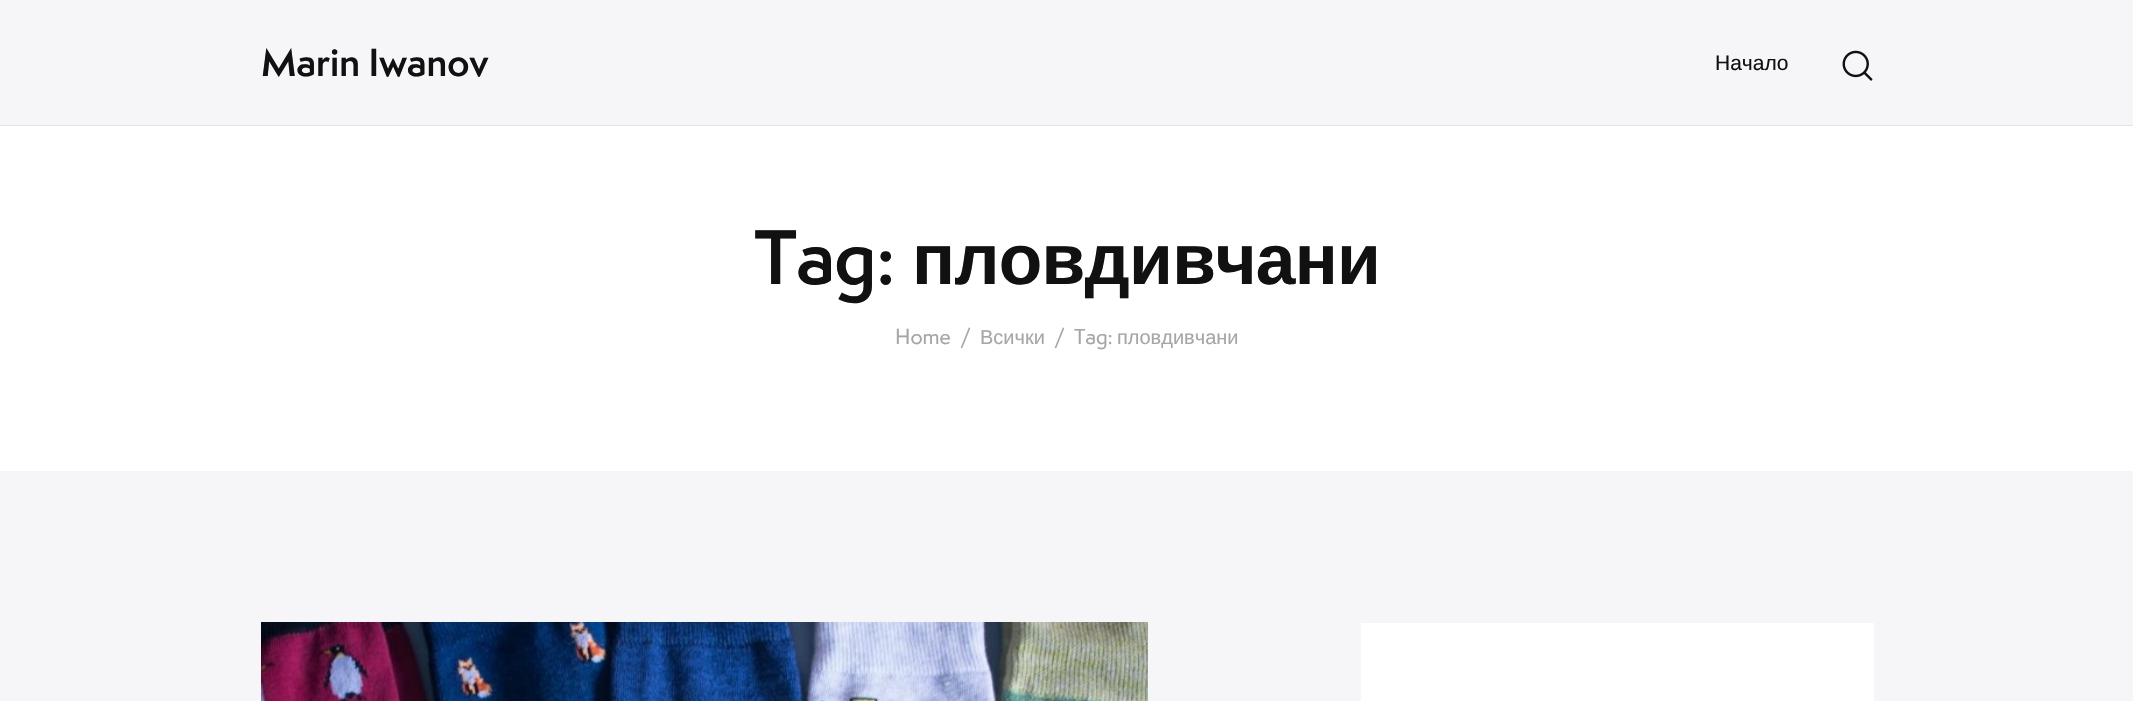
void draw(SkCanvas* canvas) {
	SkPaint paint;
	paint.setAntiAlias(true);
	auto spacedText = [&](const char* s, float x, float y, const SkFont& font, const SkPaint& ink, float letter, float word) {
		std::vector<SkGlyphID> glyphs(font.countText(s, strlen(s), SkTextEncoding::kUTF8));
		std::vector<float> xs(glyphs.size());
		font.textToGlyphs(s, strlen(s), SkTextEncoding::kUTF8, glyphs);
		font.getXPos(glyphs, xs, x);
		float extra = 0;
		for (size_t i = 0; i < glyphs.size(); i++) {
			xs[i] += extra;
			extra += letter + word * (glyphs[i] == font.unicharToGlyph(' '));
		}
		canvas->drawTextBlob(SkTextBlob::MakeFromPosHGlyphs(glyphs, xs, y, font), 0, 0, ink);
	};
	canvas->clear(0xfff6f6f8);
	paint.setColor(0xffe3e3eb);
	canvas->drawRect(SkRect::MakeXYWH(0, 125, 2133, 1), paint);
	SkFont f1(fontMgr->matchFamilyStyle("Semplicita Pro", SkFontStyle(600, SkFontStyle::kNormal_Width, SkFontStyle::kUpright_Slant)), 36);
	f1.setSubpixel(true);
	paint.setColor(0xff111111);
	canvas->drawString("Marin Iwanov", 261, 76, f1, paint);
	SkFont f2(fontMgr->matchFamilyStyle("Liberation Sans", SkFontStyle::Normal()), 21);
	f2.setSubpixel(true);
	canvas->drawString("Начало", 1715, 70, f2, paint);
	canvas->drawImageRect(SkImages::DeferredFromEncodedData(SkData::MakeFromFileName("img1.png")), SkRect::MakeXYWH(1842, 50, 31, 31), SkSamplingOptions());
	paint.setColor(0xffffffff);
	canvas->drawRect(SkRect::MakeXYWH(0, 126, 2133, 345), paint);
	SkFont f3(fontMgr->matchFamilyStyle("Semplicita Pro", SkFontStyle(600, SkFontStyle::kNormal_Width, SkFontStyle::kUpright_Slant)), 71.25);
	f3.setSubpixel(true);
	paint.setColor(0xff111111);
	spacedText("Tag:", 754, 284, f3, paint, -0.75, 0);
	SkFont f4(fontMgr->matchFamilyStyle("Liberation Sans", SkFontStyle::Bold()), 71.25);
	f4.setSubpixel(true);
	spacedText("пловдивчани", 912, 284, f4, paint, -0.75, 0);
	SkFont f5(fontMgr->matchFamilyStyle("Semplicita Pro", SkFontStyle(500, SkFontStyle::kNormal_Width, SkFontStyle::kUpright_Slant)), 20);
	f5.setSubpixel(true);
	paint.setColor(0xffa5a6aa);
	canvas->drawString("Home", 895, 344, f5, paint);
	canvas->drawString("/", 960, 344, f5, paint);
	SkFont f6(fontMgr->matchFamilyStyle("Liberation Sans", SkFontStyle::Normal()), 20);
	f6.setSubpixel(true);
	canvas->drawString("Всички", 980, 344, f6, paint);
	canvas->drawString("/", 1054, 344, f5, paint);
	canvas->drawString("Tag:", 1074, 344, f5, paint);
	canvas->drawString("пловдивчани", 1117, 344, f6, paint);
	canvas->drawImageRect(SkImages::DeferredFromEncodedData(SkData::MakeFromFileName("img2.png")), SkRect::MakeXYWH(261, 622, 887, 79), SkSamplingOptions());
	paint.setColor(0xffffffff);
	canvas->drawRect(SkRect::MakeXYWH(1361, 623, 513, 78), paint);
}
